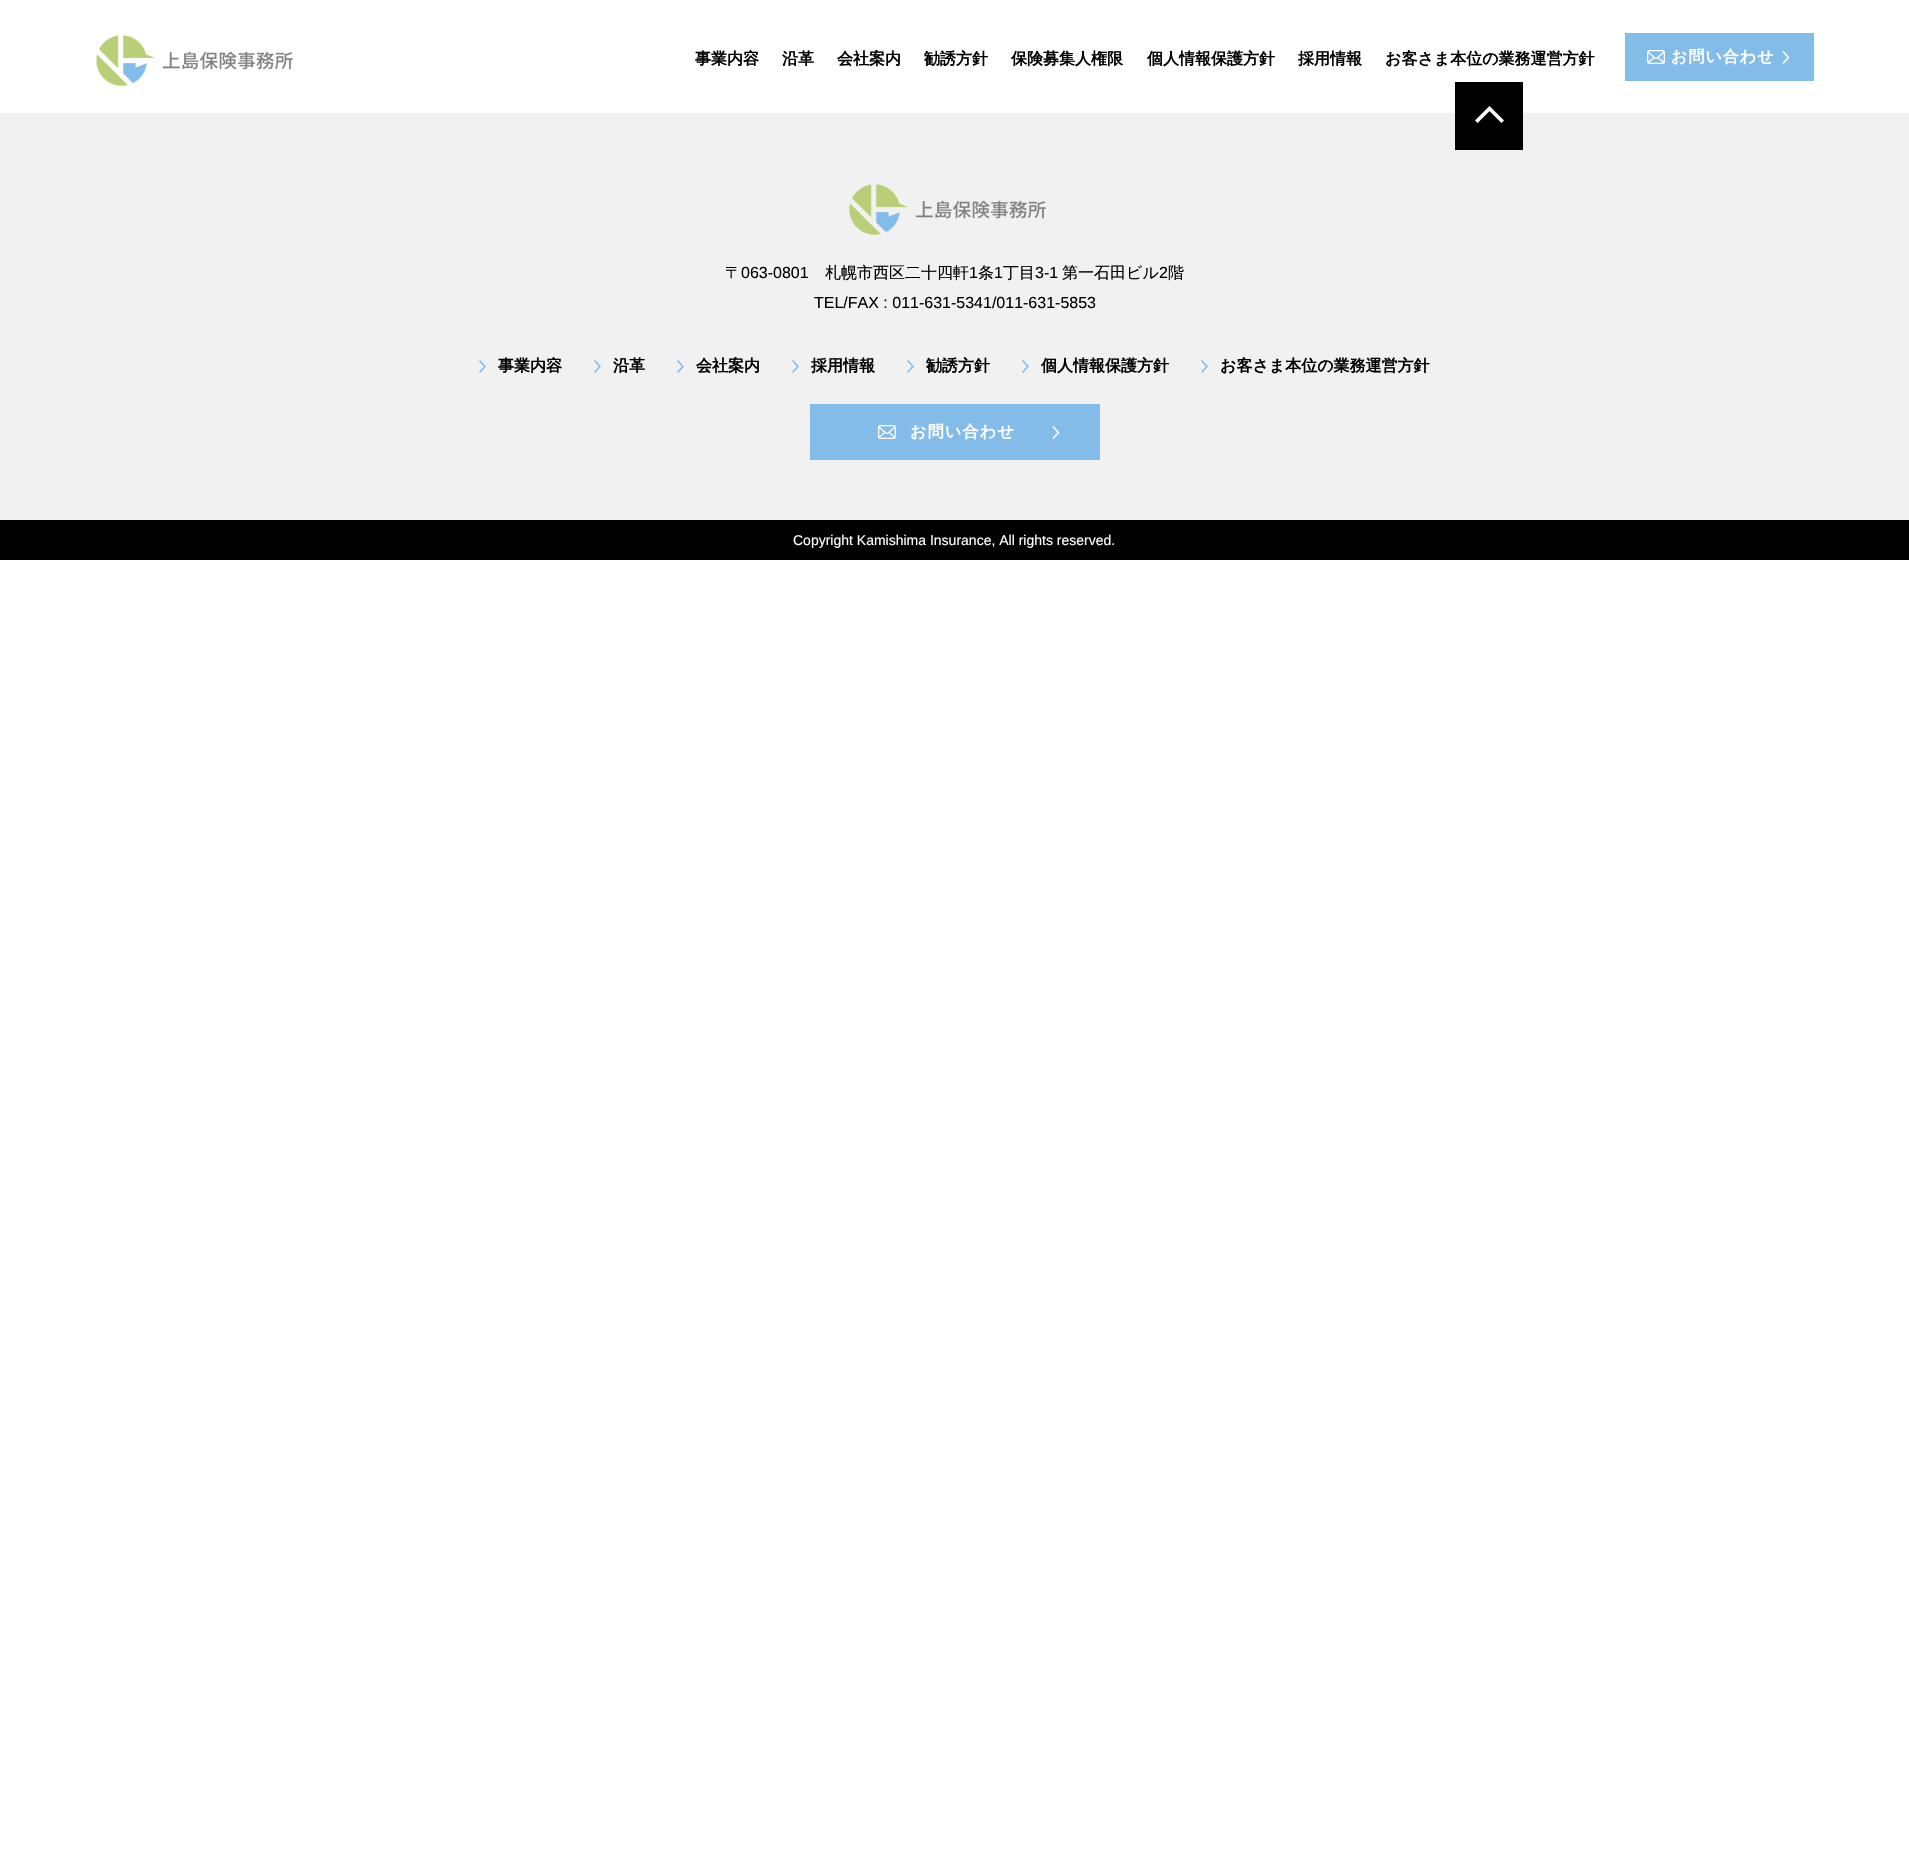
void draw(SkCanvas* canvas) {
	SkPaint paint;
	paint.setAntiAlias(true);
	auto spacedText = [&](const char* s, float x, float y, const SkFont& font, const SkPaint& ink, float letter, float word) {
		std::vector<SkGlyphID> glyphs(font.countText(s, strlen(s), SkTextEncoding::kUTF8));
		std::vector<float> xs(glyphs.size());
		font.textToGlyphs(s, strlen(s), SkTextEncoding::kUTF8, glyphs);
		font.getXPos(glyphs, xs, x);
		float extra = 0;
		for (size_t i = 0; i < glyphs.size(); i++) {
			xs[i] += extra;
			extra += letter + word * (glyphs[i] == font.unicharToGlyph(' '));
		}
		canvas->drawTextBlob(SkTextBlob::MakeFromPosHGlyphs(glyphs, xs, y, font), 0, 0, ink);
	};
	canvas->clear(0xffffffff);
	canvas->drawImageRect(SkImages::DeferredFromEncodedData(SkData::MakeFromFileName("img1.png")), SkRect::MakeXYWH(96, 35, 197, 51), SkSamplingOptions());
	SkFont f1(fontMgr->matchFamilyStyle("WenQuanYi Zen Hei", SkFontStyle::Bold()), 16);
	f1.setSubpixel(true);
	paint.setColor(0xff000000);
	canvas->drawString("事業内容", 695, 64, f1, paint);
	canvas->drawString("沿革", 782, 64, f1, paint);
	canvas->drawString("会社案内", 837, 64, f1, paint);
	canvas->drawString("勧誘方針", 924, 64, f1, paint);
	canvas->drawString("保険募集人権限", 1011, 64, f1, paint);
	canvas->drawString("個人情報保護方針", 1147, 64, f1, paint);
	canvas->drawString("採用情報", 1298, 64, f1, paint);
	canvas->drawString("お客さま本位の業務運営方針", 1385, 64, f1, paint);
	paint.setColor(0xff83bce9);
	canvas->drawRect(SkRect::MakeXYWH(1625, 33, 189, 48), paint);
	canvas->drawImageRect(SkImages::DeferredFromEncodedData(SkData::MakeFromFileName("img2.png")), SkRect::MakeXYWH(1647, 50, 143, 14), SkSamplingOptions());
	paint.setColor(0xffffffff);
	spacedText("お問い合わせ", 1671, 62, f1, paint, 1, 0);
	paint.setColor(0xfff1f1f1);
	canvas->drawRect(SkRect::MakeXYWH(0, 113, 1909, 407), paint);
	canvas->drawImageRect(SkImages::DeferredFromEncodedData(SkData::MakeFromFileName("img3.png")), SkRect::MakeXYWH(1455, 82, 68, 68), SkSamplingOptions());
	canvas->drawImageRect(SkImages::DeferredFromEncodedData(SkData::MakeFromFileName("img4.png")), SkRect::MakeXYWH(849, 184, 197, 51), SkSamplingOptions());
	SkFont f2(fontMgr->matchFamilyStyle("WenQuanYi Zen Hei", SkFontStyle(500, SkFontStyle::kNormal_Width, SkFontStyle::kUpright_Slant)), 16);
	f2.setSubpixel(true);
	paint.setColor(0xff000000);
	canvas->drawString("〒", 725, 278, f2, paint);
	SkFont f3(fontMgr->matchFamilyStyle("Liberation Sans", SkFontStyle::Normal()), 16);
	f3.setSubpixel(true);
	canvas->drawString("063-0801", 741, 278, f3, paint);
	canvas->drawString("札幌市西区二十四軒", 825, 278, f2, paint);
	canvas->drawString("1", 969, 278, f3, paint);
	canvas->drawString("条", 978, 278, f2, paint);
	canvas->drawString("1", 994, 278, f3, paint);
	canvas->drawString("丁目", 1003, 278, f2, paint);
	canvas->drawString("3-1", 1035, 278, f3, paint);
	canvas->drawString("第一石田ビル", 1062, 278, f2, paint);
	canvas->drawString("2", 1159, 278, f3, paint);
	canvas->drawString("階", 1168, 278, f2, paint);
	canvas->drawString("TEL/FAX : 011-631-5341/011-631-5853", 814, 308, f3, paint);
	canvas->drawImageRect(SkImages::DeferredFromEncodedData(SkData::MakeFromFileName("img5.png")), SkRect::MakeXYWH(479, 360, 7, 13), SkSamplingOptions());
	canvas->drawString("事業内容", 498, 371, f1, paint);
	canvas->drawImageRect(SkImages::DeferredFromEncodedData(SkData::MakeFromFileName("img5.png")), SkRect::MakeXYWH(594, 360, 7, 13), SkSamplingOptions());
	canvas->drawString("沿革", 613, 371, f1, paint);
	canvas->drawImageRect(SkImages::DeferredFromEncodedData(SkData::MakeFromFileName("img5.png")), SkRect::MakeXYWH(677, 360, 7, 13), SkSamplingOptions());
	canvas->drawString("会社案内", 696, 371, f1, paint);
	canvas->drawImageRect(SkImages::DeferredFromEncodedData(SkData::MakeFromFileName("img5.png")), SkRect::MakeXYWH(792, 360, 7, 13), SkSamplingOptions());
	canvas->drawString("採用情報", 811, 371, f1, paint);
	canvas->drawImageRect(SkImages::DeferredFromEncodedData(SkData::MakeFromFileName("img5.png")), SkRect::MakeXYWH(907, 360, 7, 13), SkSamplingOptions());
	canvas->drawString("勧誘方針", 926, 371, f1, paint);
	canvas->drawImageRect(SkImages::DeferredFromEncodedData(SkData::MakeFromFileName("img5.png")), SkRect::MakeXYWH(1022, 360, 7, 13), SkSamplingOptions());
	canvas->drawString("個人情報保護方針", 1041, 371, f1, paint);
	canvas->drawImageRect(SkImages::DeferredFromEncodedData(SkData::MakeFromFileName("img5.png")), SkRect::MakeXYWH(1201, 360, 7, 13), SkSamplingOptions());
	canvas->drawString("お客さま本位の業務運営方針", 1220, 371, f1, paint);
	paint.setColor(0xff83bce9);
	canvas->drawRect(SkRect::MakeXYWH(810, 404, 290, 56), paint);
	canvas->drawImageRect(SkImages::DeferredFromEncodedData(SkData::MakeFromFileName("img6.png")), SkRect::MakeXYWH(878, 425, 182, 14), SkSamplingOptions());
	paint.setColor(0xffffffff);
	spacedText("お問い合わせ", 910, 437, f1, paint, 1.25, 0);
	paint.setColor(0xff000000);
	canvas->drawRect(SkRect::MakeXYWH(0, 520, 1909, 40), paint);
	SkFont f4(fontMgr->matchFamilyStyle("Liberation Sans", SkFontStyle::Normal()), 14);
	f4.setSubpixel(true);
	paint.setColor(0xffffffff);
	canvas->drawString("Copyright Kamishima Insurance, All rights reserved.", 793, 545, f4, paint);
}
